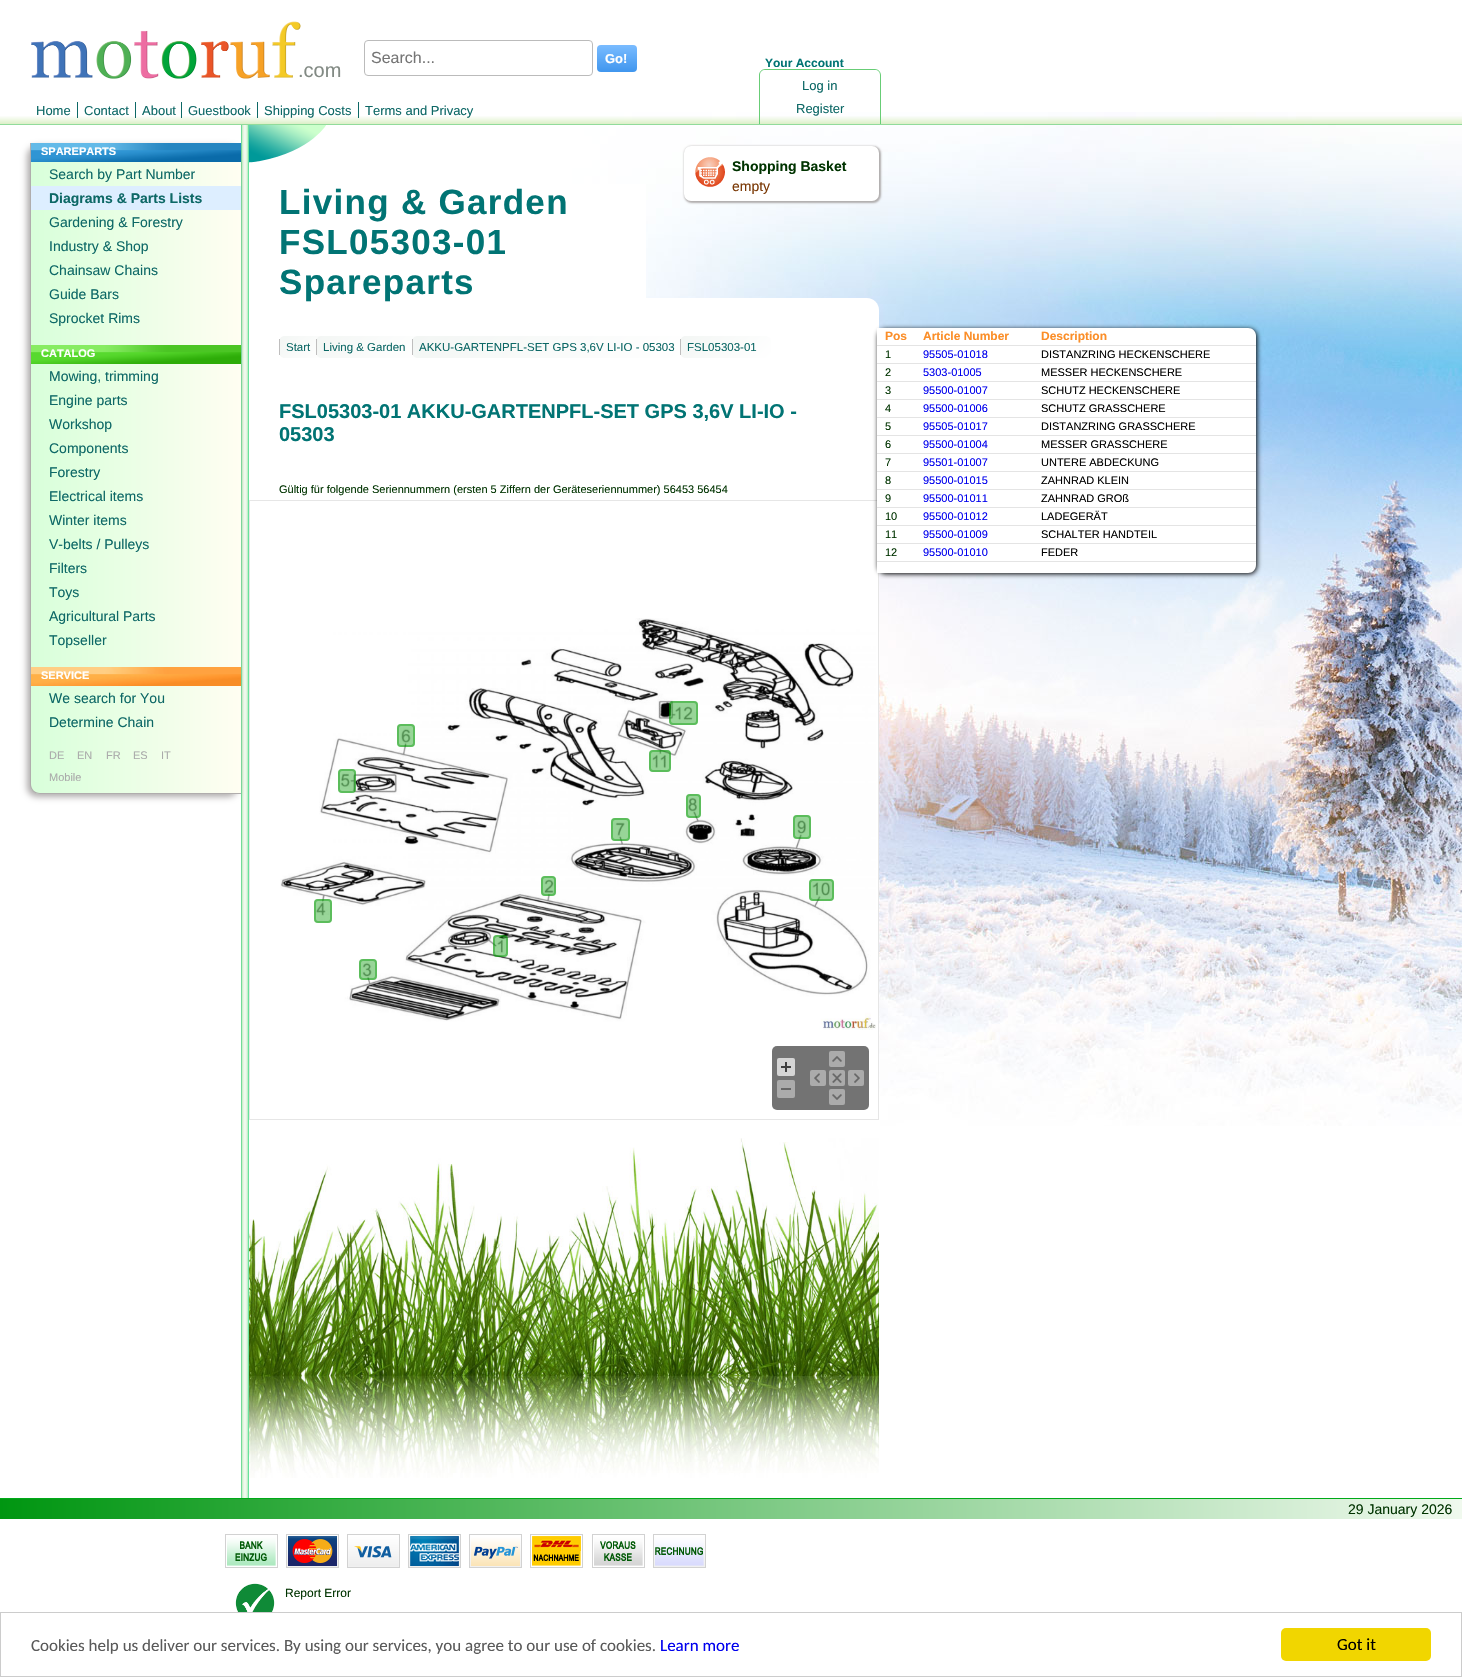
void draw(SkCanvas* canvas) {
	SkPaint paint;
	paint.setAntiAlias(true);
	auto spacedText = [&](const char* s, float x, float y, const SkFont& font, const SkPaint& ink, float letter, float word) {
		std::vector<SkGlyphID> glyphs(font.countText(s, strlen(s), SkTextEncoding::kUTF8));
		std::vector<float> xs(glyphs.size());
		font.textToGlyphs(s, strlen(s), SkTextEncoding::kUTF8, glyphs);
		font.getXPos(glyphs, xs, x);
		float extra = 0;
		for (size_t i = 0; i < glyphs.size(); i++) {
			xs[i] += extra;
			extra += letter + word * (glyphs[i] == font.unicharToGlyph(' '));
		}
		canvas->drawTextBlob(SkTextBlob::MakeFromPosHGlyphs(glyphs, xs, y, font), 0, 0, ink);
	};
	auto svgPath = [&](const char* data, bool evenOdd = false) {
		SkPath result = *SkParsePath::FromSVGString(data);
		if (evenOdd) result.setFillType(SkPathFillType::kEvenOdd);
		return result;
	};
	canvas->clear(0xffffffff);
	canvas->drawImageRect(SkImages::DeferredFromEncodedData(SkData::MakeFromFileName("img1.png")), SkRect::MakeXYWH(572, 112, 890, 1014), SkSamplingOptions());
	canvas->drawImageRect(SkImages::DeferredFromEncodedData(SkData::MakeFromFileName("img2.png")), SkRect::MakeXYWH(31, 21, 270, 58), SkSamplingOptions());
	SkFont f1(fontMgr->matchFamilyStyle("Liberation Sans", SkFontStyle::Normal()), 20);
	f1.setSubpixel(true);
	paint.setColor(0xff828a84);
	canvas->drawString(".com", 298, 77, f1, paint);
	paint.setStroke(true);
	paint.setStrokeWidth(1);
	paint.setColor(0xffbbbbbb);
	canvas->drawRoundRect(SkRect::MakeXYWH(364.5, 40.5, 228, 35), 3.5, 3.5, paint);
	SkFont f2(fontMgr->matchFamilyStyle("Liberation Sans", SkFontStyle::Normal()), 16);
	f2.setSubpixel(true);
	paint.setStroke(false);
	paint.setColor(0xff757575);
	canvas->drawString("Search...", 371, 63, f2, paint);
	{
		const SkColor colors[] = {0xff7abcff, 0xff60abf8, 0xff4096ee};
		const float stops[] = {0, 0.44, 1};
		const SkPoint ends[] = {{617, 45}, {617, 72}};
		paint.setShader(SkGradientShader::MakeLinear(ends, colors, stops, 3, SkTileMode::kClamp));
		paint.setAlpha(255);
	}
	canvas->drawRoundRect(SkRect::MakeXYWH(597, 45, 40, 27), 4, 4, paint);
	SkFont f3(fontMgr->matchFamilyStyle("Liberation Sans", SkFontStyle::Bold()), 13);
	f3.setSubpixel(true);
	paint.setShader(nullptr);
	paint.setColor(0xffffffff);
	canvas->drawString("Go!", 605, 63, f3, paint);
	SkFont f4(fontMgr->matchFamilyStyle("Liberation Sans", SkFontStyle::Bold()), 12);
	f4.setSubpixel(true);
	paint.setColor(0xff017474);
	canvas->drawString("Your Account", 765, 67, f4, paint);
	{
		const SkColor colors[] = {0x00dcefc7, 0xffdcefc7};
		const float stops[] = {0.69, 1};
		const SkPoint ends[] = {{731, 97}, {731, 124}};
		paint.setShader(SkGradientShader::MakeLinear(ends, colors, stops, 2, SkTileMode::kClamp));
		paint.setAlpha(255);
	}
	canvas->drawRect(SkRect::MakeXYWH(0, 116, 1462, 8), paint);
	paint.setShader(nullptr);
	paint.setColor(0xff68cd76);
	canvas->drawPath(svgPath("M765 69H875C878 69 881 72 881 75V124H759V75C759 72 762 69 765 69ZM765 70H875C878 70 880 72 880 75V124H760V75C760 72 762 70 765 70Z", true), paint);
	SkFont f5(fontMgr->matchFamilyStyle("Liberation Sans", SkFontStyle::Normal()), 13);
	f5.setSubpixel(true);
	paint.setColor(0xff0d6866);
	canvas->drawString("Log in", 802, 90, f5, paint);
	canvas->drawString("Register", 796, 113, f5, paint);
	paint.setColor(0xba68cd76);
	canvas->drawRect(SkRect::MakeXYWH(0, 124, 1462, 1), paint);
	paint.setColor(0xff0d6866);
	canvas->drawString("Home", 36, 115, f5, paint);
	canvas->drawRect(SkRect::MakeXYWH(77, 102, 1, 16), paint);
	canvas->drawString("Contact", 84, 115, f5, paint);
	canvas->drawRect(SkRect::MakeXYWH(135, 102, 1, 16), paint);
	canvas->drawString("About", 142, 115, f5, paint);
	canvas->drawRect(SkRect::MakeXYWH(181, 102, 1, 16), paint);
	canvas->drawString("Guestbook", 188, 115, f5, paint);
	canvas->drawRect(SkRect::MakeXYWH(257, 102, 1, 16), paint);
	canvas->drawString("Shipping Costs", 264, 115, f5, paint);
	canvas->drawRect(SkRect::MakeXYWH(358, 102, 1, 16), paint);
	canvas->drawString("Terms and Privacy", 365, 115, f5, paint);
	canvas->drawImageRect(SkImages::DeferredFromEncodedData(SkData::MakeFromFileName("img6.png")), SkRect::MakeXYWH(241, 125, 8, 1373), SkSamplingOptions());
	paint.setColor(0xffb0adad);
	paint.setMaskFilter(SkMaskFilter::MakeBlur(kNormal_SkBlurStyle, 3));
	canvas->drawRoundRect(SkRect::MakeXYWH(27, 146, 211, 651), 10, 10, paint);
	paint.setMaskFilter(nullptr);
	canvas->save();
	canvas->clipPath(svgPath("M30 143H241V794H40C34.5 794 30 789.5 30 784Z"), true);
	{
		const SkColor colors[] = {0xffd8ffda, 0xfffffef2};
		const float stops[] = {0, 1};
		const SkPoint ends[] = {{31, 468}, {241, 468}};
		paint.setShader(SkGradientShader::MakeLinear(ends, colors, stops, 2, SkTileMode::kClamp));
		paint.setAlpha(255);
	}
	canvas->drawRect(SkRect::MakeXYWH(31, 162, 210, 632), paint);
	canvas->restore();
	paint.setShader(nullptr);
	paint.setColor(0xffb0adad);
	canvas->drawPath(svgPath("M30 143H241V794H40C34 794 30 790 30 784ZM31 143H241V793H40C35 793 31 789 31 784Z", true), paint);
	canvas->drawImageRect(SkImages::DeferredFromEncodedData(SkData::MakeFromFileName("img3.png")), SkRect::MakeXYWH(31, 143, 210, 19), SkSamplingOptions());
	SkFont f6(fontMgr->matchFamilyStyle("Liberation Sans", SkFontStyle::Bold()), 11);
	f6.setSubpixel(true);
	paint.setColor(0xffffffff);
	canvas->drawString("SPAREPARTS", 41, 155, f6, paint);
	SkFont f7(fontMgr->matchFamilyStyle("Liberation Sans", SkFontStyle::Normal()), 14);
	f7.setSubpixel(true);
	paint.setColor(0xff0d6866);
	canvas->drawString("Search by Part Number", 49, 179, f7, paint);
	paint.setColor(0xffddeeff);
	canvas->drawRect(SkRect::MakeXYWH(31, 186, 210, 24), paint);
	SkFont f8(fontMgr->matchFamilyStyle("Liberation Sans", SkFontStyle::Bold()), 14);
	f8.setSubpixel(true);
	paint.setColor(0xff0d6866);
	canvas->drawString("Diagrams & Parts Lists", 49, 203, f8, paint);
	canvas->drawString("Gardening & Forestry", 49, 227, f7, paint);
	canvas->drawString("Industry & Shop", 49, 251, f7, paint);
	canvas->drawString("Chainsaw Chains", 49, 275, f7, paint);
	canvas->drawString("Guide Bars", 49, 299, f7, paint);
	canvas->drawString("Sprocket Rims", 49, 323, f7, paint);
	canvas->drawImageRect(SkImages::DeferredFromEncodedData(SkData::MakeFromFileName("img4.png")), SkRect::MakeXYWH(31, 345, 210, 19), SkSamplingOptions());
	paint.setColor(0xffffffff);
	canvas->drawString("CATALOG", 41, 357, f6, paint);
	paint.setColor(0xff0d6866);
	canvas->drawString("Mowing, trimming", 49, 381, f7, paint);
	canvas->drawString("Engine parts", 49, 405, f7, paint);
	canvas->drawString("Workshop", 49, 429, f7, paint);
	canvas->drawString("Components", 49, 453, f7, paint);
	canvas->drawString("Forestry", 49, 477, f7, paint);
	canvas->drawString("Electrical items", 49, 501, f7, paint);
	canvas->drawString("Winter items", 49, 525, f7, paint);
	canvas->drawString("V-belts / Pulleys", 49, 549, f7, paint);
	canvas->drawString("Filters", 49, 573, f7, paint);
	canvas->drawString("Toys", 49, 597, f7, paint);
	canvas->drawString("Agricultural Parts", 49, 621, f7, paint);
	canvas->drawString("Topseller", 49, 645, f7, paint);
	canvas->drawImageRect(SkImages::DeferredFromEncodedData(SkData::MakeFromFileName("img5.png")), SkRect::MakeXYWH(31, 667, 210, 19), SkSamplingOptions());
	paint.setColor(0xffffffff);
	canvas->drawString("SERVICE", 41, 679, f6, paint);
	paint.setColor(0xff0d6866);
	canvas->drawString("We search for You", 49, 703, f7, paint);
	canvas->drawString("Determine Chain", 49, 727, f7, paint);
	SkFont f9(fontMgr->matchFamilyStyle("Liberation Sans", SkFontStyle::Normal()), 11);
	f9.setSubpixel(true);
	paint.setColor(0xffaaaaaa);
	canvas->drawString("DE", 49, 759, f9, paint);
	canvas->drawString("EN", 77, 759, f9, paint);
	canvas->drawString("FR", 106, 759, f9, paint);
	canvas->drawString("ES", 133, 759, f9, paint);
	canvas->drawString("IT", 161, 759, f9, paint);
	canvas->drawString("Mobile", 49, 781, f9, paint);
	paint.setColor(0xffffffff);
	canvas->drawRect(SkRect::MakeXYWH(572, 184, 74, 114), paint);
	canvas->drawImageRect(SkImages::DeferredFromEncodedData(SkData::MakeFromFileName("img7.png")), SkRect::MakeXYWH(249, 125, 77, 38), SkSamplingOptions());
	SkFont f10(fontMgr->matchFamilyStyle("Liberation Sans", SkFontStyle::Bold()), 35);
	f10.setSubpixel(true);
	paint.setColor(0xff017474);
	spacedText("Living & Garden", 279, 214, f10, paint, 1.3, 0);
	spacedText("FSL05303-01", 279, 254, f10, paint, 1.3, 0);
	paint.setColor(0xffffffff);
	canvas->drawPath(svgPath("M249 298H867C873.5 298 879 303.5 879 310V1498H249Z"), paint);
	paint.setColor(0xff017474);
	spacedText("Spareparts", 279, 294, f10, paint, 1.3, 0);
	canvas->save();
	canvas->clipPath(svgPath("M285 336H318C321.5 336 324 338.5 324 342V352C324 355.5 321.5 358 318 358H285C281.5 358 279 355.5 279 352V342C279 338.5 281.5 336 285 336Z"), true);
	{
		const SkColor colors[] = {0xfff3f6f4, 0xffffffff};
		const float stops[] = {0, 1};
		const SkPoint ends[] = {{286, 331}, {319, 364}};
		paint.setShader(SkGradientShader::MakeLinear(ends, colors, stops, 2, SkTileMode::kClamp));
		paint.setAlpha(255);
	}
	canvas->drawPath(svgPath("M280 336H318C321.5 336 324 338.5 324 342V352C324 355.5 321.5 358 318 358H280Z"), paint);
	canvas->restore();
	paint.setShader(nullptr);
	paint.setColor(0xffbfbebe);
	canvas->drawRect(SkRect::MakeXYWH(279, 339, 1, 16), paint);
	SkFont f11(fontMgr->matchFamilyStyle("Liberation Sans", SkFontStyle::Normal()), 11.5);
	f11.setSubpixel(true);
	paint.setColor(0xff0d6866);
	canvas->drawString("Start", 286, 351, f11, paint);
	canvas->save();
	canvas->clipPath(svgPath("M322 336H414C417.5 336 420 338.5 420 342V352C420 355.5 417.5 358 414 358H322C318.5 358 316 355.5 316 352V342C316 338.5 318.5 336 322 336Z"), true);
	{
		const SkColor colors[] = {0xfff3f6f4, 0xffffffff};
		const float stops[] = {0, 1};
		const SkPoint ends[] = {{337, 316}, {400, 378}};
		paint.setShader(SkGradientShader::MakeLinear(ends, colors, stops, 2, SkTileMode::kClamp));
		paint.setAlpha(255);
	}
	canvas->drawPath(svgPath("M317 336H414C417.5 336 420 338.5 420 342V352C420 355.5 417.5 358 414 358H317Z"), paint);
	canvas->restore();
	paint.setShader(nullptr);
	paint.setColor(0xffbfbebe);
	canvas->drawRect(SkRect::MakeXYWH(316, 339, 1, 16), paint);
	paint.setColor(0xff0d6866);
	canvas->drawString("Living & Garden", 323, 351, f11, paint);
	canvas->save();
	canvas->clipPath(svgPath("M418 336H682C685.5 336 688 338.5 688 342V352C688 355.5 685.5 358 682 358H418C414.5 358 412 355.5 412 352V342C412 338.5 414.5 336 418 336Z"), true);
	{
		const SkColor colors[] = {0xfff3f6f4, 0xffffffff};
		const float stops[] = {0, 1};
		const SkPoint ends[] = {{476, 273}, {625, 421}};
		paint.setShader(SkGradientShader::MakeLinear(ends, colors, stops, 2, SkTileMode::kClamp));
		paint.setAlpha(255);
	}
	canvas->drawPath(svgPath("M413 336H682C685.5 336 688 338.5 688 342V352C688 355.5 685.5 358 682 358H413Z"), paint);
	canvas->restore();
	paint.setShader(nullptr);
	paint.setColor(0xffbfbebe);
	canvas->drawRect(SkRect::MakeXYWH(412, 339, 1, 16), paint);
	paint.setColor(0xff0d6866);
	canvas->drawString("AKKU-GARTENPFL-SET GPS 3,6V LI-IO - 05303", 419, 351, f11, paint);
	canvas->save();
	canvas->clipPath(svgPath("M686 336H765C768.5 336 771 338.5 771 342V352C771 355.5 768.5 358 765 358H686C682.5 358 680 355.5 680 352V342C680 338.5 682.5 336 686 336Z"), true);
	{
		const SkColor colors[] = {0xfff3f6f4, 0xffffffff};
		const float stops[] = {0, 1};
		const SkPoint ends[] = {{698, 319}, {754, 375}};
		paint.setShader(SkGradientShader::MakeLinear(ends, colors, stops, 2, SkTileMode::kClamp));
		paint.setAlpha(255);
	}
	canvas->drawPath(svgPath("M681 336H765C768.5 336 771 338.5 771 342V352C771 355.5 768.5 358 765 358H681Z"), paint);
	canvas->restore();
	paint.setShader(nullptr);
	paint.setColor(0xffbfbebe);
	canvas->drawRect(SkRect::MakeXYWH(680, 339, 1, 16), paint);
	paint.setColor(0xff0d6866);
	canvas->drawString("FSL05303-01", 687, 351, f11, paint);
	SkFont f12(fontMgr->matchFamilyStyle("Liberation Sans", SkFontStyle::Bold()), 20);
	f12.setSubpixel(true);
	paint.setColor(0xff017474);
	canvas->drawString("FSL05303-01 AKKU-GARTENPFL-SET GPS 3,6V LI-IO -", 279, 418, f12, paint);
	canvas->drawString("05303", 279, 441, f12, paint);
	paint.setColor(0xffe6e6e6);
	canvas->drawRect(SkRect::MakeXYWH(250, 500, 628, 1), paint);
	canvas->drawRect(SkRect::MakeXYWH(878, 573, 1, 547), paint);
	paint.setColor(0xff000000);
	paint.setMaskFilter(SkMaskFilter::MakeBlur(kNormal_SkBlurStyle, 2.5));
	canvas->drawRoundRect(SkRect::MakeXYWH(878, 329, 379, 245), 8, 8, paint);
	paint.setMaskFilter(nullptr);
	paint.setColor(0xffffffff);
	canvas->drawPath(svgPath("M877 328H1248C1252.5 328 1256 331.5 1256 336V565C1256 569.5 1252.5 573 1248 573H877Z"), paint);
	paint.setColor(0xffe4e4e4);
	canvas->drawRect(SkRect::MakeXYWH(877, 345, 379, 1), paint);
	paint.setColor(0xfffb8e28);
	canvas->drawString("Pos", 885, 340, f4, paint);
	canvas->drawString("Article Number", 923, 340, f4, paint);
	canvas->drawString("Description", 1041, 340, f4, paint);
	paint.setColor(0xffe4e4e4);
	canvas->drawRect(SkRect::MakeXYWH(877, 363, 379, 1), paint);
	paint.setColor(0xff003300);
	canvas->drawString("1", 885, 358, f9, paint);
	paint.setColor(0xff0000ee);
	canvas->drawString("95505-01018", 923, 358, f9, paint);
	paint.setColor(0xff000000);
	canvas->drawString("DISTANZRING HECKENSCHERE", 1041, 358, f9, paint);
	paint.setColor(0xffe4e4e4);
	canvas->drawRect(SkRect::MakeXYWH(877, 381, 379, 1), paint);
	paint.setColor(0xff003300);
	canvas->drawString("2", 885, 376, f9, paint);
	paint.setColor(0xff0000ee);
	canvas->drawString("5303-01005", 923, 376, f9, paint);
	paint.setColor(0xff000000);
	canvas->drawString("MESSER HECKENSCHERE", 1041, 376, f9, paint);
	paint.setColor(0xffe4e4e4);
	canvas->drawRect(SkRect::MakeXYWH(877, 399, 379, 1), paint);
	paint.setColor(0xff003300);
	canvas->drawString("3", 885, 394, f9, paint);
	paint.setColor(0xff0000ee);
	canvas->drawString("95500-01007", 923, 394, f9, paint);
	paint.setColor(0xff000000);
	canvas->drawString("SCHUTZ HECKENSCHERE", 1041, 394, f9, paint);
	paint.setColor(0xffe4e4e4);
	canvas->drawRect(SkRect::MakeXYWH(877, 417, 379, 1), paint);
	paint.setColor(0xff003300);
	canvas->drawString("4", 885, 412, f9, paint);
	paint.setColor(0xff0000ee);
	canvas->drawString("95500-01006", 923, 412, f9, paint);
	paint.setColor(0xff000000);
	canvas->drawString("SCHUTZ GRASSCHERE", 1041, 412, f9, paint);
	paint.setColor(0xffe4e4e4);
	canvas->drawRect(SkRect::MakeXYWH(877, 435, 379, 1), paint);
	paint.setColor(0xff003300);
	canvas->drawString("5", 885, 430, f9, paint);
	paint.setColor(0xff0000ee);
	canvas->drawString("95505-01017", 923, 430, f9, paint);
	paint.setColor(0xff000000);
	canvas->drawString("DISTANZRING GRASSCHERE", 1041, 430, f9, paint);
	paint.setColor(0xffe4e4e4);
	canvas->drawRect(SkRect::MakeXYWH(877, 453, 379, 1), paint);
	paint.setColor(0xff003300);
	canvas->drawString("6", 885, 448, f9, paint);
	paint.setColor(0xff0000ee);
	canvas->drawString("95500-01004", 923, 448, f9, paint);
	paint.setColor(0xff000000);
	canvas->drawString("MESSER GRASSCHERE", 1041, 448, f9, paint);
	paint.setColor(0xffe4e4e4);
	canvas->drawRect(SkRect::MakeXYWH(877, 471, 379, 1), paint);
	paint.setColor(0xff003300);
	canvas->drawString("7", 885, 466, f9, paint);
	paint.setColor(0xff0000ee);
	canvas->drawString("95501-01007", 923, 466, f9, paint);
	paint.setColor(0xff000000);
	canvas->drawString("UNTERE ABDECKUNG", 1041, 466, f9, paint);
	paint.setColor(0xffe4e4e4);
	canvas->drawRect(SkRect::MakeXYWH(877, 489, 379, 1), paint);
	paint.setColor(0xff003300);
	canvas->drawString("8", 885, 484, f9, paint);
	paint.setColor(0xff0000ee);
	canvas->drawString("95500-01015", 923, 484, f9, paint);
	paint.setColor(0xff000000);
	canvas->drawString("ZAHNRAD KLEIN", 1041, 484, f9, paint);
	paint.setColor(0xffe4e4e4);
	canvas->drawRect(SkRect::MakeXYWH(877, 507, 379, 1), paint);
	paint.setColor(0xff003300);
	canvas->drawString("9", 885, 502, f9, paint);
	paint.setColor(0xff0000ee);
	canvas->drawString("95500-01011", 923, 502, f9, paint);
	paint.setColor(0xff000000);
	canvas->drawString("ZAHNRAD GROß", 1041, 502, f9, paint);
	paint.setColor(0xffe4e4e4);
	canvas->drawRect(SkRect::MakeXYWH(877, 525, 379, 1), paint);
	paint.setColor(0xff003300);
	canvas->drawString("10", 885, 520, f9, paint);
	paint.setColor(0xff0000ee);
	canvas->drawString("95500-01012", 923, 520, f9, paint);
	paint.setColor(0xff000000);
	canvas->drawString("LADEGERÄT", 1041, 520, f9, paint);
	paint.setColor(0xffe4e4e4);
	canvas->drawRect(SkRect::MakeXYWH(877, 543, 379, 1), paint);
	paint.setColor(0xff003300);
	canvas->drawString("11", 885, 538, f9, paint);
	paint.setColor(0xff0000ee);
	canvas->drawString("95500-01009", 923, 538, f9, paint);
	paint.setColor(0xff000000);
	canvas->drawString("SCHALTER HANDTEIL", 1041, 538, f9, paint);
	paint.setColor(0xffe4e4e4);
	canvas->drawRect(SkRect::MakeXYWH(877, 561, 379, 1), paint);
	paint.setColor(0xff003300);
	canvas->drawString("12", 885, 556, f9, paint);
	paint.setColor(0xff0000ee);
	canvas->drawString("95500-01010", 923, 556, f9, paint);
	paint.setColor(0xff000000);
	canvas->drawString("FEDER", 1041, 556, f9, paint);
	paint.setColor(0xff003300);
	canvas->drawString("Gültig für folgende Seriennummern (ersten 5 Ziffern der Geräteseriennummer) 56453 56454", 279, 493, f9, paint);
	paint.setColor(0xffe6e6e6);
	canvas->drawRect(SkRect::MakeXYWH(249, 500, 1, 620), paint);
	canvas->drawImageRect(SkImages::DeferredFromEncodedData(SkData::MakeFromFileName("img8.png")), SkRect::MakeXYWH(280, 618, 596, 412), SkSamplingOptions());
	paint.setColor(0x66009900);
	canvas->drawRoundRect(SkRect::MakeXYWH(669, 701, 29, 24), 4, 4, paint);
	paint.setStroke(true);
	paint.setStrokeWidth(2);
	canvas->drawRoundRect(SkRect::MakeXYWH(670, 702, 27, 22), 3, 3, paint);
	paint.setStroke(false);
	canvas->drawRoundRect(SkRect::MakeXYWH(397, 724, 18, 23), 4, 4, paint);
	paint.setStroke(true);
	canvas->drawRoundRect(SkRect::MakeXYWH(398, 725, 16, 21), 3, 3, paint);
	paint.setStroke(false);
	canvas->drawRoundRect(SkRect::MakeXYWH(649, 750, 22, 22), 4, 4, paint);
	paint.setStroke(true);
	canvas->drawRoundRect(SkRect::MakeXYWH(650, 751, 20, 20), 3, 3, paint);
	paint.setStroke(false);
	canvas->drawRoundRect(SkRect::MakeXYWH(338, 769, 18, 24), 4, 4, paint);
	paint.setStroke(true);
	canvas->drawRoundRect(SkRect::MakeXYWH(339, 770, 16, 22), 3, 3, paint);
	paint.setStroke(false);
	canvas->drawRoundRect(SkRect::MakeXYWH(686, 794, 15, 24), 4, 4, paint);
	paint.setStroke(true);
	canvas->drawRoundRect(SkRect::MakeXYWH(687, 795, 13, 22), 3, 3, paint);
	paint.setStroke(false);
	canvas->drawRoundRect(SkRect::MakeXYWH(611, 818, 19, 23), 4, 4, paint);
	paint.setStroke(true);
	canvas->drawRoundRect(SkRect::MakeXYWH(612, 819, 17, 21), 3, 3, paint);
	paint.setStroke(false);
	canvas->drawRoundRect(SkRect::MakeXYWH(793, 815, 18, 24), 4, 4, paint);
	paint.setStroke(true);
	canvas->drawRoundRect(SkRect::MakeXYWH(794, 816, 16, 22), 3, 3, paint);
	paint.setStroke(false);
	canvas->drawRoundRect(SkRect::MakeXYWH(541, 876, 15, 20), 4, 4, paint);
	paint.setStroke(true);
	canvas->drawRoundRect(SkRect::MakeXYWH(542, 877, 13, 18), 3, 3, paint);
	paint.setStroke(false);
	canvas->drawRoundRect(SkRect::MakeXYWH(809, 879, 25, 22), 4, 4, paint);
	paint.setStroke(true);
	canvas->drawRoundRect(SkRect::MakeXYWH(810, 880, 23, 20), 3, 3, paint);
	paint.setStroke(false);
	canvas->drawRoundRect(SkRect::MakeXYWH(314, 899, 18, 24), 4, 4, paint);
	paint.setStroke(true);
	canvas->drawRoundRect(SkRect::MakeXYWH(315, 900, 16, 22), 3, 3, paint);
	paint.setStroke(false);
	canvas->drawRoundRect(SkRect::MakeXYWH(493, 935, 15, 22), 4, 4, paint);
	paint.setStroke(true);
	canvas->drawRoundRect(SkRect::MakeXYWH(494, 936, 13, 20), 3, 3, paint);
	paint.setStroke(false);
	canvas->drawRoundRect(SkRect::MakeXYWH(359, 959, 18, 21), 4, 4, paint);
	paint.setStroke(true);
	canvas->drawRoundRect(SkRect::MakeXYWH(360, 960, 16, 19), 3, 3, paint);
	paint.setStroke(false);
	paint.setColor(0xff737373);
	canvas->drawRoundRect(SkRect::MakeXYWH(772, 1046, 97, 64), 5, 5, paint);
	paint.setColor(0xffd5d5d5);
	canvas->drawRoundRect(SkRect::MakeXYWH(777, 1058, 18, 18), 2, 2, paint);
	canvas->drawImageRect(SkImages::DeferredFromEncodedData(SkData::MakeFromFileName("img9.png")), SkRect::MakeXYWH(781, 1062, 10, 10), SkSamplingOptions());
	paint.setColor(0xffababab);
	canvas->drawRoundRect(SkRect::MakeXYWH(829, 1051, 16, 16), 2, 2, paint);
	canvas->drawImageRect(SkImages::DeferredFromEncodedData(SkData::MakeFromFileName("img10.png")), SkRect::MakeXYWH(832, 1056, 10, 6), SkSamplingOptions());
	canvas->drawRoundRect(SkRect::MakeXYWH(810, 1070, 16, 16), 2, 2, paint);
	canvas->drawImageRect(SkImages::DeferredFromEncodedData(SkData::MakeFromFileName("img11.png")), SkRect::MakeXYWH(814, 1073, 6, 10), SkSamplingOptions());
	canvas->drawRoundRect(SkRect::MakeXYWH(829, 1070, 16, 16), 2, 2, paint);
	canvas->drawImageRect(SkImages::DeferredFromEncodedData(SkData::MakeFromFileName("img12.png")), SkRect::MakeXYWH(832, 1073, 10, 10), SkSamplingOptions());
	canvas->drawRoundRect(SkRect::MakeXYWH(848, 1070, 16, 16), 2, 2, paint);
	canvas->drawImageRect(SkImages::DeferredFromEncodedData(SkData::MakeFromFileName("img13.png")), SkRect::MakeXYWH(854, 1073, 6, 10), SkSamplingOptions());
	canvas->drawRoundRect(SkRect::MakeXYWH(777, 1080, 18, 18), 2, 2, paint);
	paint.setColor(0xff676767);
	canvas->drawRect(SkRect::MakeXYWH(781, 1088, 10, 2), paint);
	paint.setColor(0xffababab);
	canvas->drawRoundRect(SkRect::MakeXYWH(829, 1089, 16, 16), 2, 2, paint);
	canvas->drawImageRect(SkImages::DeferredFromEncodedData(SkData::MakeFromFileName("img14.png")), SkRect::MakeXYWH(832, 1094, 10, 6), SkSamplingOptions());
	paint.setColor(0xffe6e6e6);
	canvas->drawRect(SkRect::MakeXYWH(250, 1119, 628, 1), paint);
	canvas->drawImageRect(SkImages::DeferredFromEncodedData(SkData::MakeFromFileName("img15.png")), SkRect::MakeXYWH(249, 1138, 630, 340), SkSamplingOptions());
	paint.setColor(0xffb0adad);
	paint.setMaskFilter(SkMaskFilter::MakeBlur(kNormal_SkBlurStyle, 1));
	canvas->drawRoundRect(SkRect::MakeXYWH(684, 146, 197, 57), 8, 8, paint);
	paint.setMaskFilter(nullptr);
	paint.setColor(0xffffffff);
	canvas->drawRoundRect(SkRect::MakeXYWH(684, 146, 195, 55), 7, 7, paint);
	canvas->drawImageRect(SkImages::DeferredFromEncodedData(SkData::MakeFromFileName("img16.png")), SkRect::MakeXYWH(695, 157, 30, 30), SkSamplingOptions());
	paint.setColor(0xff003300);
	canvas->drawString("Shopping Basket", 732, 171, f8, paint);
	paint.setColor(0xff7a3805);
	canvas->drawString("empty", 732, 191, f7, paint);
	{
		const SkColor colors[] = {0xff009611, 0xfff0f9ee};
		const float stops[] = {0, 1};
		const SkPoint ends[] = {{0, 1509}, {1462, 1509}};
		paint.setShader(SkGradientShader::MakeLinear(ends, colors, stops, 2, SkTileMode::kClamp));
		paint.setAlpha(255);
	}
	canvas->drawRect(SkRect::MakeXYWH(0, 1499, 1462, 20), paint);
	paint.setShader(nullptr);
	paint.setColor(0xff00aa18);
	canvas->drawRect(SkRect::MakeXYWH(0, 1498, 1462, 1), paint);
	paint.setColor(0xff003300);
	canvas->drawString("29 January 2026", 1348, 1514, f7, paint);
	canvas->drawImageRect(SkImages::DeferredFromEncodedData(SkData::MakeFromFileName("img17.png")), SkRect::MakeXYWH(225, 1534, 481, 34), SkSamplingOptions());
	canvas->drawImageRect(SkImages::DeferredFromEncodedData(SkData::MakeFromFileName("img18.png")), SkRect::MakeXYWH(235, 1583, 40, 29), SkSamplingOptions());
	SkFont f13(fontMgr->matchFamilyStyle("Liberation Sans", SkFontStyle::Normal()), 12);
	f13.setSubpixel(true);
	canvas->drawString("Report Error", 285, 1597, f13, paint);
	paint.setStroke(true);
	paint.setStrokeWidth(1);
	paint.setColor(0xffcccccc);
	canvas->drawRect(SkRect::MakeXYWH(0.5, 1612.5, 1461, 64), paint);
	SkFont f14(fontMgr->matchFamilyStyle("Carlito", SkFontStyle::Normal()), 17);
	f14.setSubpixel(true);
	paint.setStroke(false);
	paint.setColor(0xff5a5a5a);
	canvas->drawString("Cookies help us deliver our services. By using our services, you agree to our use of cookies.", 31, 1651, f14, paint);
	paint.setColor(0xff0000ee);
	canvas->drawString("Learn more", 660, 1651, f14, paint);
	paint.setColor(0xfff1d600);
	canvas->drawRoundRect(SkRect::MakeXYWH(1281, 1628, 150, 33), 5, 5, paint);
	paint.setColor(0xff000000);
	canvas->drawString("Got it", 1337, 1650, f14, paint);
}
